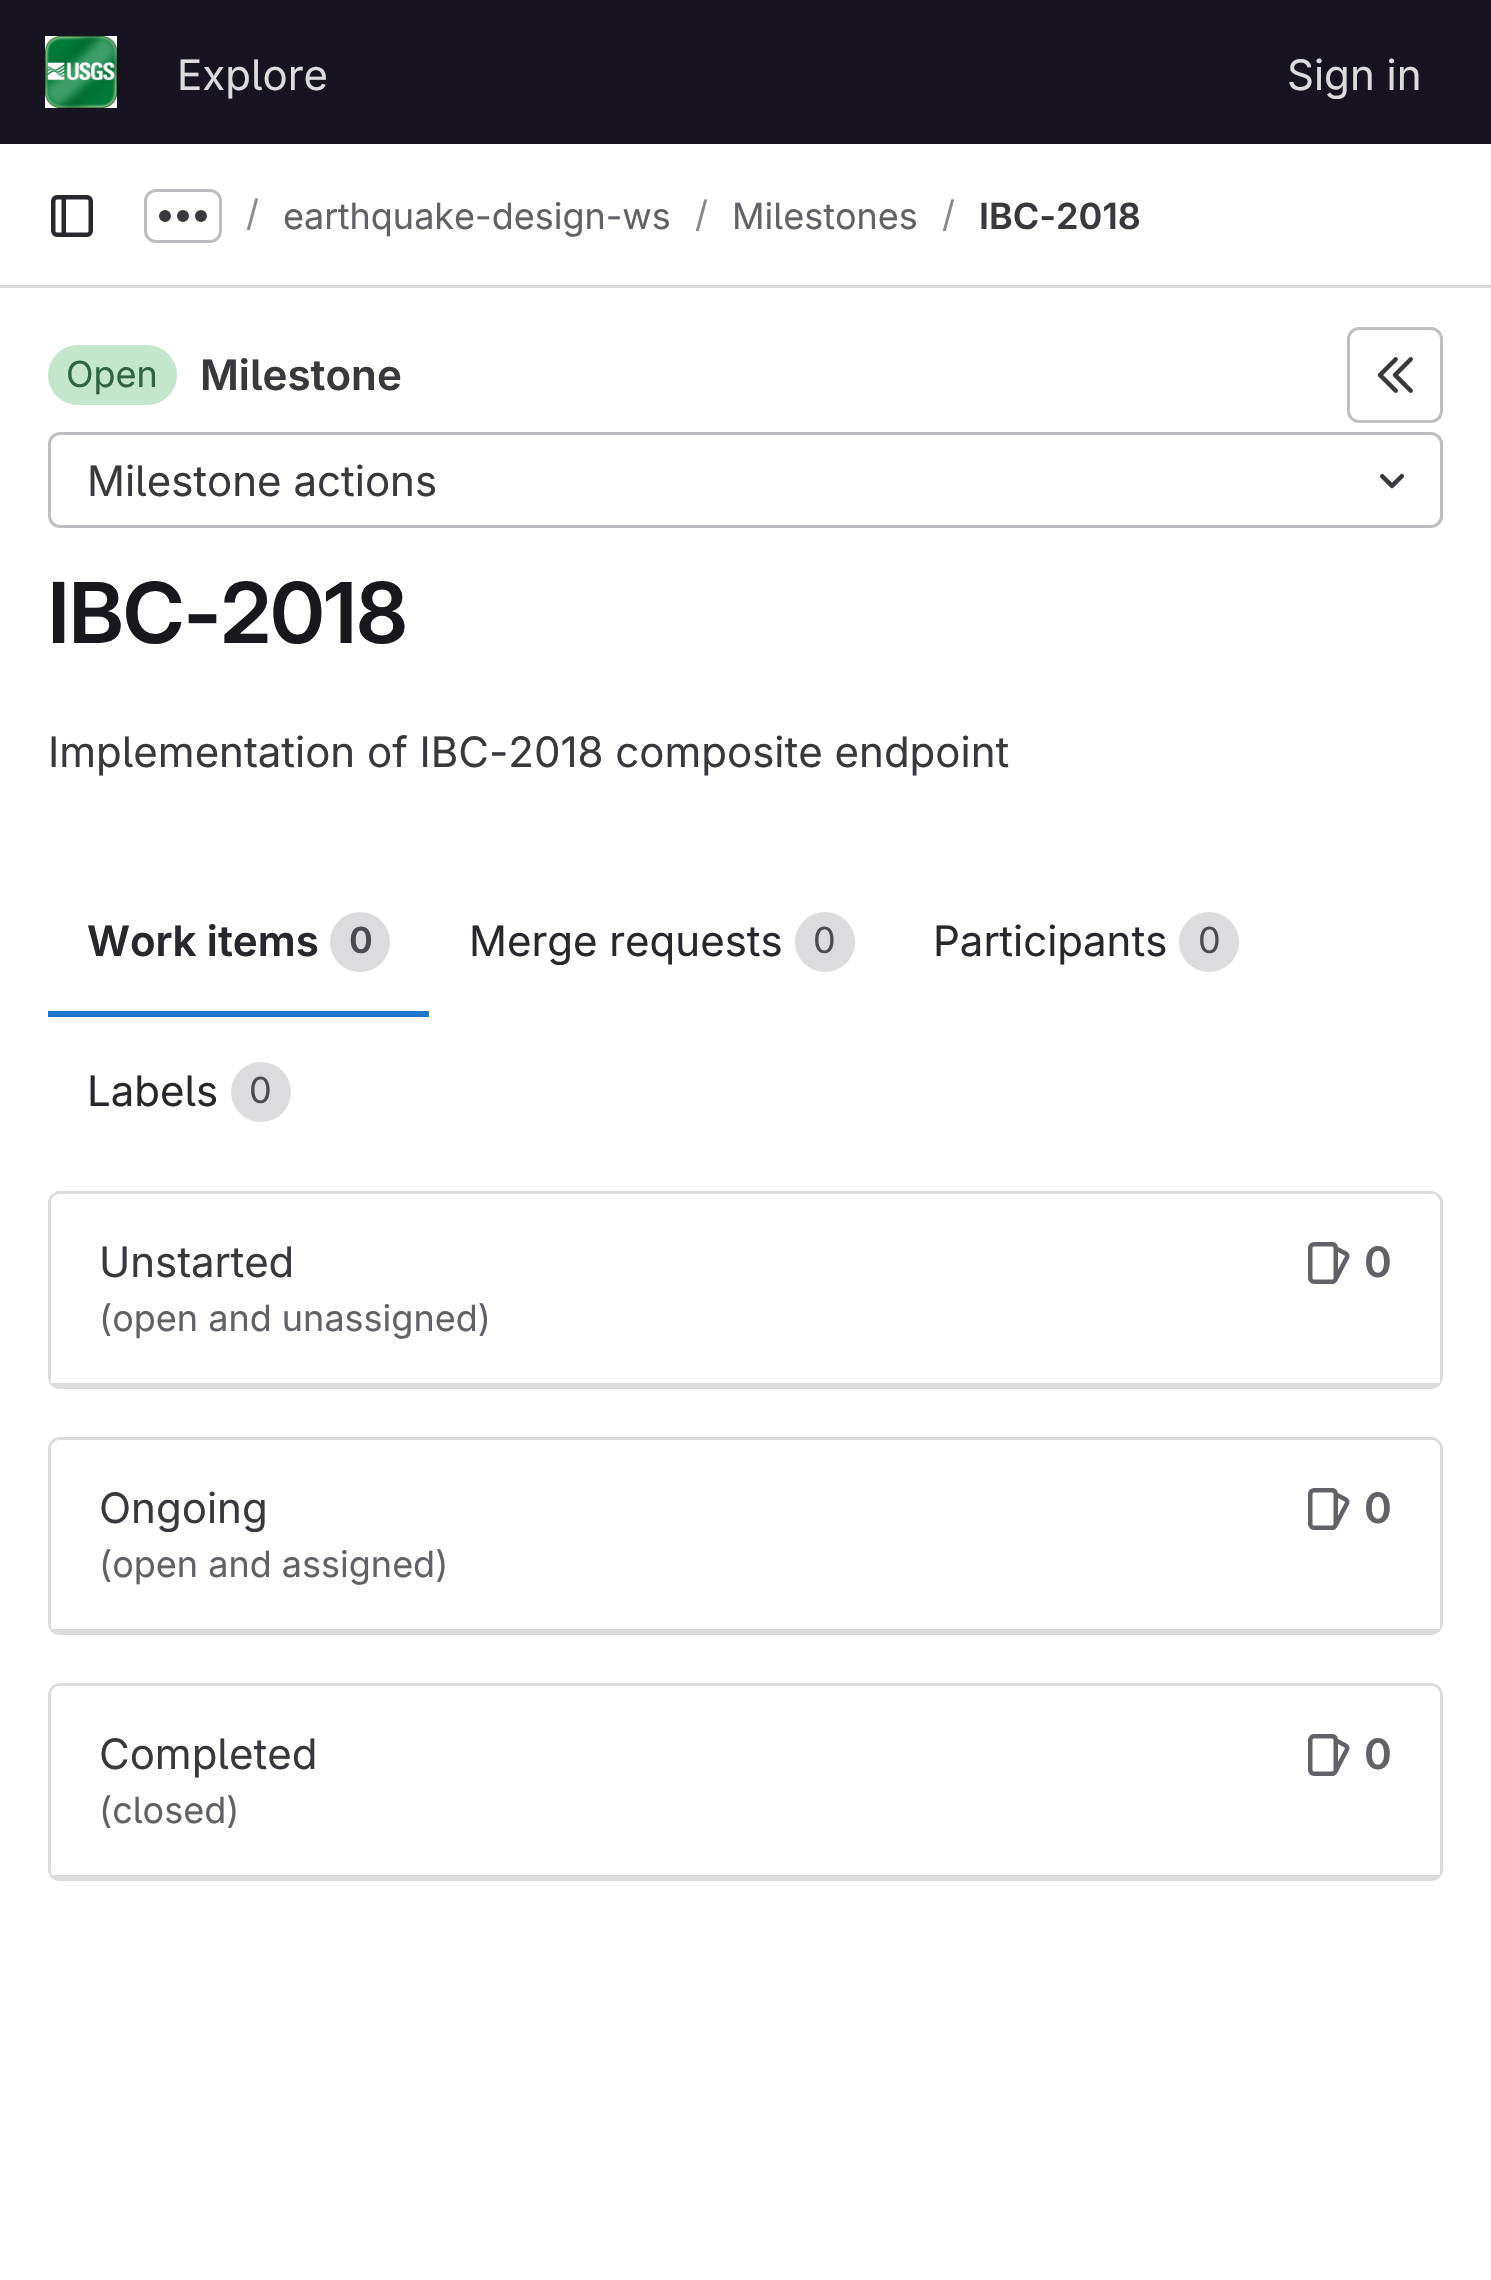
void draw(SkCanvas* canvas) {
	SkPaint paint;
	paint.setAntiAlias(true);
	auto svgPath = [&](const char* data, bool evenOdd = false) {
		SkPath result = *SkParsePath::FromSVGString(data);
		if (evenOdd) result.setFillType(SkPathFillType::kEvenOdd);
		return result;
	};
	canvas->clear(0xffffffff);
	paint.setColor(0xff171321);
	canvas->drawRect(SkRect::MakeXYWH(0, 0, 1491, 144), paint);
	canvas->drawImageRect(SkImages::DeferredFromEncodedData(SkData::MakeFromFileName("img1.png")), SkRect::MakeXYWH(45, 36, 72, 72), SkSamplingOptions());
	SkFont f1(fontMgr->matchFamilyStyle("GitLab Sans", SkFontStyle::Normal()), 42);
	f1.setSubpixel(true);
	paint.setColor(0xffdcdcde);
	canvas->drawString("Explore", 177, 90, f1, paint);
	canvas->drawString("Sign in", 1287, 90, f1, paint);
	canvas->drawRect(SkRect::MakeXYWH(0, 285, 1491, 3), paint);
	canvas->drawImageRect(SkImages::DeferredFromEncodedData(SkData::MakeFromFileName("img2.png")), SkRect::MakeXYWH(51, 195, 42, 42), SkSamplingOptions());
	paint.setStroke(true);
	paint.setStrokeWidth(3);
	paint.setColor(0xffbfbfc3);
	canvas->drawRoundRect(SkRect::MakeXYWH(145.5, 190.5, 75, 51), 10.5, 10.5, paint);
	canvas->drawImageRect(SkImages::DeferredFromEncodedData(SkData::MakeFromFileName("img3.png")), SkRect::MakeXYWH(159, 210, 48, 12), SkSamplingOptions());
	SkFont f2(fontMgr->matchFamilyStyle("GitLab Sans", SkFontStyle::Normal()), 36);
	f2.setSubpixel(true);
	paint.setStroke(false);
	paint.setColor(0xff89888d);
	canvas->drawString("/", 246, 226, f2, paint);
	paint.setColor(0xff626168);
	canvas->drawString("earthquake-design-ws", 283, 229, f2, paint);
	paint.setColor(0xff89888d);
	canvas->drawString("/", 695, 227, f2, paint);
	paint.setColor(0xff626168);
	canvas->drawString("Milestones", 732, 229, f2, paint);
	paint.setColor(0xff89888d);
	canvas->drawString("/", 942, 227, f2, paint);
	SkFont f3(fontMgr->matchFamilyStyle("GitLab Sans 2", SkFontStyle(600, SkFontStyle::kNormal_Width, SkFontStyle::kUpright_Slant)), 36);
	f3.setSubpixel(true);
	paint.setColor(0xff3a383f);
	canvas->drawString("IBC-2018", 979, 229, f3, paint);
	paint.setColor(0xffc3e6cd);
	canvas->drawRoundRect(SkRect::MakeXYWH(48, 345, 129, 60), 30, 30, paint);
	paint.setColor(0xff306440);
	canvas->drawString("Open", 66, 387, f2, paint);
	SkFont f4(fontMgr->matchFamilyStyle("GitLab Sans 2", SkFontStyle(600, SkFontStyle::kNormal_Width, SkFontStyle::kUpright_Slant)), 42);
	f4.setSubpixel(true);
	paint.setColor(0xff3a383f);
	canvas->drawString("Milestone", 200, 390, f4, paint);
	paint.setStroke(true);
	paint.setColor(0xffbfbfc3);
	canvas->drawRoundRect(SkRect::MakeXYWH(1348.5, 328.5, 93, 93), 10.5, 10.5, paint);
	canvas->drawImageRect(SkImages::DeferredFromEncodedData(SkData::MakeFromFileName("img4.png")), SkRect::MakeXYWH(1377, 357, 36, 36), SkSamplingOptions());
	canvas->drawRoundRect(SkRect::MakeXYWH(49.5, 433.5, 1392, 93), 10.5, 10.5, paint);
	paint.setStroke(false);
	paint.setColor(0xff3a383f);
	canvas->drawString("Milestone actions", 87, 496, f1, paint);
	canvas->drawImageRect(SkImages::DeferredFromEncodedData(SkData::MakeFromFileName("img5.png")), SkRect::MakeXYWH(1379, 473, 26, 16), SkSamplingOptions());
	SkFont f5(fontMgr->matchFamilyStyle("GitLab Sans", SkFontStyle(600, SkFontStyle::kNormal_Width, SkFontStyle::kUpright_Slant)), 84);
	f5.setSubpixel(true);
	paint.setColor(0xff18171d);
	canvas->drawString("IBC-2018", 48, 643, f5, paint);
	paint.setColor(0xff3a383f);
	canvas->drawString("Implementation of IBC-2018 composite endpoint", 48, 767, f1, paint);
	paint.setColor(0xff28272d);
	canvas->drawString("Work items", 87, 956, f4, paint);
	paint.setColor(0xffdcdcde);
	canvas->drawCircle(360, 942, 30, paint);
	paint.setColor(0xff4c4b51);
	canvas->drawString("0", 349, 953, f3, paint);
	paint.setColor(0xff1f75cb);
	canvas->drawRect(SkRect::MakeXYWH(48, 1011, 381, 6), paint);
	paint.setColor(0xff28272d);
	canvas->drawString("Merge requests", 469, 956, f1, paint);
	paint.setColor(0xffdcdcde);
	canvas->drawCircle(825, 942, 30, paint);
	paint.setColor(0xff4c4b51);
	canvas->drawString("0", 813, 953, f2, paint);
	paint.setColor(0xff28272d);
	canvas->drawString("Participants", 933, 956, f1, paint);
	paint.setColor(0xffdcdcde);
	canvas->drawCircle(1209, 942, 30, paint);
	paint.setColor(0xff4c4b51);
	canvas->drawString("0", 1198, 953, f2, paint);
	paint.setColor(0xff28272d);
	canvas->drawString("Labels", 87, 1106, f1, paint);
	paint.setColor(0xffdcdcde);
	canvas->drawCircle(261, 1092, 30, paint);
	paint.setColor(0xff4c4b51);
	canvas->drawString("0", 249, 1103, f2, paint);
	paint.setStroke(true);
	paint.setColor(0xffdcdcde);
	canvas->drawRoundRect(SkRect::MakeXYWH(49.5, 1192.5, 1392, 195), 10.5, 10.5, paint);
	paint.setStroke(false);
	paint.setColor(0xffffffff);
	canvas->drawPath(svgPath("M60 1194H1431C1436 1194 1440 1198 1440 1203V1386H51V1203C51 1198 55 1194 60 1194Z"), paint);
	paint.setColor(0xffdcdcde);
	canvas->drawRect(SkRect::MakeXYWH(51, 1383, 1389, 3), paint);
	paint.setColor(0xff3a383f);
	canvas->drawString("Unstarted", 99, 1277, f1, paint);
	paint.setColor(0xff626168);
	canvas->drawString("(open and unassigned)", 99, 1331, f2, paint);
	canvas->drawImageRect(SkImages::DeferredFromEncodedData(SkData::MakeFromFileName("img6.png")), SkRect::MakeXYWH(1308, 1242, 42, 42), SkSamplingOptions());
	canvas->drawString("0", 1364, 1277, f4, paint);
	paint.setStroke(true);
	paint.setColor(0xffdcdcde);
	canvas->drawRoundRect(SkRect::MakeXYWH(49.5, 1438.5, 1392, 195), 10.5, 10.5, paint);
	paint.setStroke(false);
	paint.setColor(0xffffffff);
	canvas->drawPath(svgPath("M60 1440H1431C1436 1440 1440 1444 1440 1449V1632H51V1449C51 1444 55 1440 60 1440Z"), paint);
	paint.setColor(0xffdcdcde);
	canvas->drawRect(SkRect::MakeXYWH(51, 1629, 1389, 3), paint);
	paint.setColor(0xff3a383f);
	canvas->drawString("Ongoing", 99, 1523, f1, paint);
	paint.setColor(0xff626168);
	canvas->drawString("(open and assigned)", 99, 1577, f2, paint);
	canvas->drawImageRect(SkImages::DeferredFromEncodedData(SkData::MakeFromFileName("img7.png")), SkRect::MakeXYWH(1308, 1488, 42, 42), SkSamplingOptions());
	canvas->drawString("0", 1364, 1523, f4, paint);
	paint.setStroke(true);
	paint.setColor(0xffdcdcde);
	canvas->drawRoundRect(SkRect::MakeXYWH(49.5, 1684.5, 1392, 195), 10.5, 10.5, paint);
	paint.setStroke(false);
	paint.setColor(0xffffffff);
	canvas->drawPath(svgPath("M60 1686H1431C1436 1686 1440 1690 1440 1695V1878H51V1695C51 1690 55 1686 60 1686Z"), paint);
	paint.setColor(0xffdcdcde);
	canvas->drawRect(SkRect::MakeXYWH(51, 1875, 1389, 3), paint);
	paint.setColor(0xff3a383f);
	canvas->drawString("Completed", 99, 1769, f1, paint);
	paint.setColor(0xff626168);
	canvas->drawString("(closed)", 99, 1823, f2, paint);
	canvas->drawImageRect(SkImages::DeferredFromEncodedData(SkData::MakeFromFileName("img8.png")), SkRect::MakeXYWH(1308, 1734, 42, 42), SkSamplingOptions());
	canvas->drawString("0", 1364, 1769, f4, paint);
}
